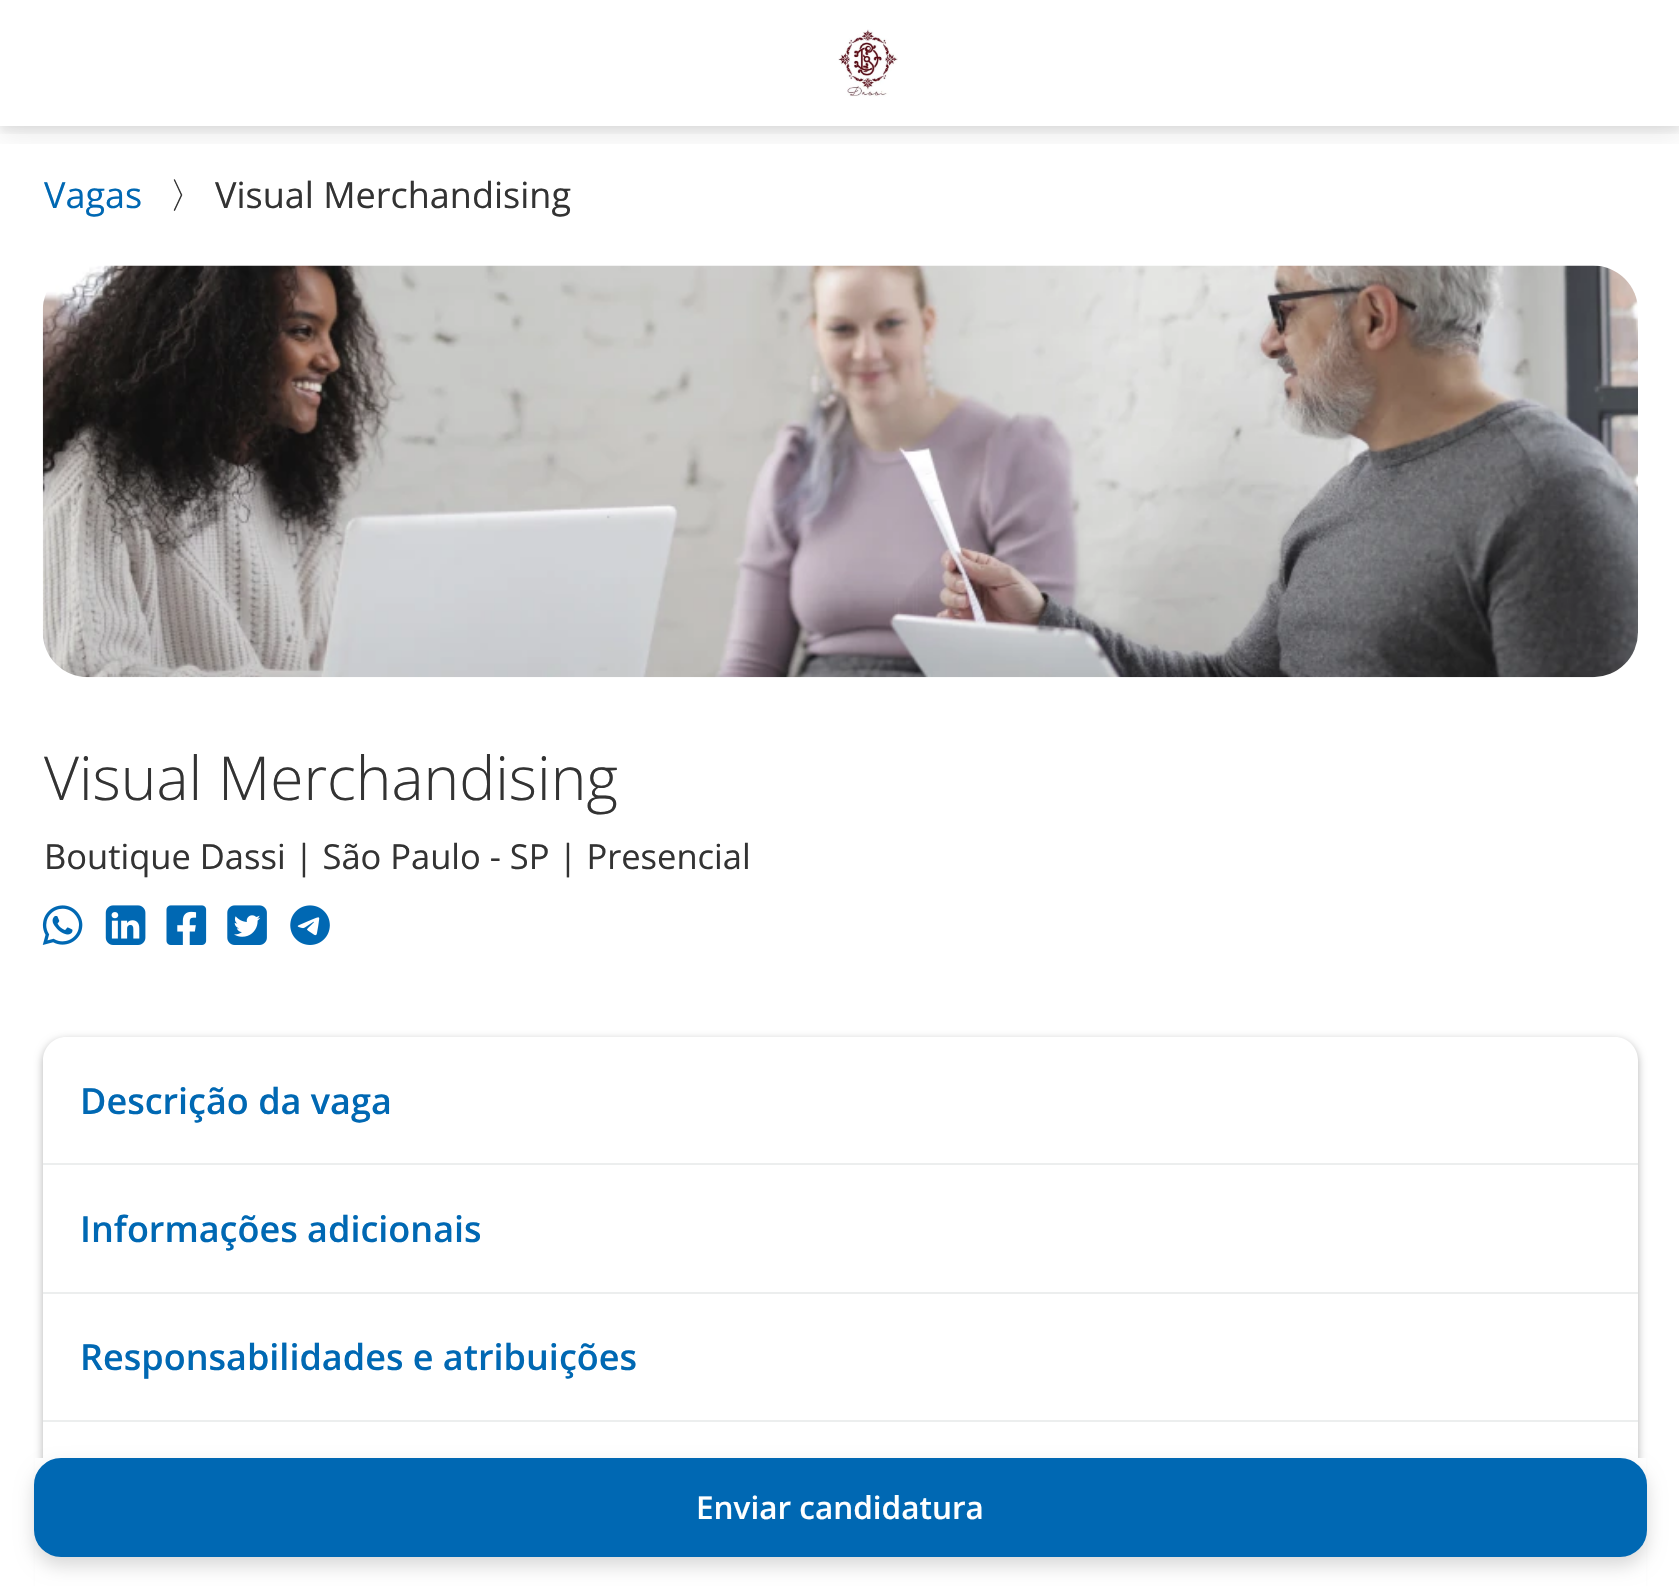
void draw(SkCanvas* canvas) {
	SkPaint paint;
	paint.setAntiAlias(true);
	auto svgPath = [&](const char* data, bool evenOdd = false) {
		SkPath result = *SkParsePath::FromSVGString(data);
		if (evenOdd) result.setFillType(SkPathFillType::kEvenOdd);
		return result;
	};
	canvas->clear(0xffffffff);
	canvas->save();
	canvas->clipRect(SkRect::MakeXYWH(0, 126, 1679, 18));
	paint.setColor(0x14000000);
	paint.setMaskFilter(SkMaskFilter::MakeBlur(kNormal_SkBlurStyle, 13.5));
	canvas->drawRect(SkRect::MakeXYWH(0, 9, 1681, 126), paint);
	paint.setMaskFilter(nullptr);
	canvas->restore();
	canvas->save();
	canvas->clipRect(SkRect::MakeXYWH(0, 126, 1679, 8));
	paint.setMaskFilter(SkMaskFilter::MakeBlur(kNormal_SkBlurStyle, 4.5));
	canvas->drawRect(SkRect::MakeXYWH(0, 5, 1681, 126), paint);
	paint.setMaskFilter(nullptr);
	canvas->restore();
	canvas->drawImageRect(SkImages::DeferredFromEncodedData(SkData::MakeFromFileName("img1.png")), SkRect::MakeXYWH(838, 29, 60, 68), SkSamplingOptions());
	SkFont f1(fontMgr->matchFamilyStyle("Open Sans", SkFontStyle::Normal()), 36);
	f1.setSubpixel(true);
	paint.setColor(0xff0068b3);
	canvas->drawString("Vagas", 44, 208, f1, paint);
	SkFont f2(fontMgr->matchFamilyStyle("WenQuanYi Zen Hei", SkFontStyle(500, SkFontStyle::kNormal_Width, SkFontStyle::kUpright_Slant)), 36);
	f2.setSubpixel(true);
	paint.setColor(0xff333333);
	canvas->drawString("〉", 169, 208, f2, paint);
	canvas->drawString("Visual Merchandising", 215, 208, f1, paint);
	canvas->drawImageRect(SkImages::DeferredFromEncodedData(SkData::MakeFromFileName("img2.png")), SkRect::MakeXYWH(42, 265, 1596, 413), SkSamplingOptions());
	SkFont f3(fontMgr->matchFamilyStyle("Open Sans", SkFontStyle(300, SkFontStyle::kNormal_Width, SkFontStyle::kUpright_Slant)), 60.5);
	f3.setSubpixel(true);
	canvas->drawString("Visual Merchandising", 44, 800, f3, paint);
	SkFont f4(fontMgr->matchFamilyStyle("Open Sans", SkFontStyle::Normal()), 34.5);
	f4.setSubpixel(true);
	canvas->drawString("Boutique Dassi | São Paulo - SP | Presencial", 44, 869, f4, paint);
	canvas->drawImageRect(SkImages::DeferredFromEncodedData(SkData::MakeFromFileName("img3.png")), SkRect::MakeXYWH(42, 905, 41, 40), SkSamplingOptions());
	canvas->drawImageRect(SkImages::DeferredFromEncodedData(SkData::MakeFromFileName("img4.png")), SkRect::MakeXYWH(105, 905, 41, 40), SkSamplingOptions());
	canvas->drawImageRect(SkImages::DeferredFromEncodedData(SkData::MakeFromFileName("img5.png")), SkRect::MakeXYWH(166, 905, 41, 40), SkSamplingOptions());
	canvas->drawImageRect(SkImages::DeferredFromEncodedData(SkData::MakeFromFileName("img6.png")), SkRect::MakeXYWH(227, 905, 40, 40), SkSamplingOptions());
	canvas->drawImageRect(SkImages::DeferredFromEncodedData(SkData::MakeFromFileName("img7.png")), SkRect::MakeXYWH(290, 905, 40, 40), SkSamplingOptions());
	canvas->save();
	canvas->clipPath(svgPath("M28 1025H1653V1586H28ZM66 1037H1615C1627.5 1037 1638 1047.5 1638 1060V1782C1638 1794.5 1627.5 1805 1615 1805H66C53.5 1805 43 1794.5 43 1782V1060C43 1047.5 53.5 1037 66 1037Z", true), true);
	paint.setColor(0x4d000000);
	paint.setMaskFilter(SkMaskFilter::MakeBlur(kNormal_SkBlurStyle, 4.5));
	canvas->drawRoundRect(SkRect::MakeXYWH(43, 1040, 1595, 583), 23, 23, paint);
	paint.setMaskFilter(nullptr);
	canvas->restore();
	SkFont f5(fontMgr->matchFamilyStyle("Open Sans", SkFontStyle(600, SkFontStyle::kNormal_Width, SkFontStyle::kUpright_Slant)), 36);
	f5.setSubpixel(true);
	paint.setColor(0xff0068b3);
	canvas->drawString("Descrição da vaga", 80, 1114, f5, paint);
	paint.setColor(0xffeceeee);
	canvas->drawRect(SkRect::MakeXYWH(43, 1163, 1595, 2), paint);
	paint.setColor(0xff0068b3);
	canvas->drawString("Informações adicionais", 80, 1242, f5, paint);
	paint.setColor(0xffeceeee);
	canvas->drawRect(SkRect::MakeXYWH(43, 1292, 1595, 2), paint);
	paint.setColor(0xff0068b3);
	canvas->drawString("Responsabilidades e atribuições", 80, 1370, f5, paint);
	paint.setColor(0xffeceeee);
	canvas->drawRect(SkRect::MakeXYWH(43, 1420, 1595, 2), paint);
	paint.setColor(0xffffffff);
	canvas->drawRect(SkRect::MakeXYWH(35, 1458, 1611, 128), paint);
	paint.setColor(0x26000000);
	paint.setMaskFilter(SkMaskFilter::MakeBlur(kNormal_SkBlurStyle, 9));
	canvas->drawRoundRect(SkRect::MakeXYWH(34, 1467, 1613, 99), 27, 27, paint);
	paint.setMaskFilter(nullptr);
	paint.setColor(0xff0068b3);
	canvas->drawRoundRect(SkRect::MakeXYWH(35, 1459, 1611, 97), 26, 26, paint);
	paint.setStroke(true);
	paint.setStrokeWidth(2);
	canvas->drawRoundRect(SkRect::MakeXYWH(35, 1459, 1611, 97), 26, 26, paint);
	SkFont f6(fontMgr->matchFamilyStyle("Open Sans", SkFontStyle(600, SkFontStyle::kNormal_Width, SkFontStyle::kUpright_Slant)), 31.5);
	f6.setSubpixel(true);
	paint.setStroke(false);
	paint.setColor(0xffffffff);
	canvas->drawString("Enviar candidatura", 696, 1519, f6, paint);
}
